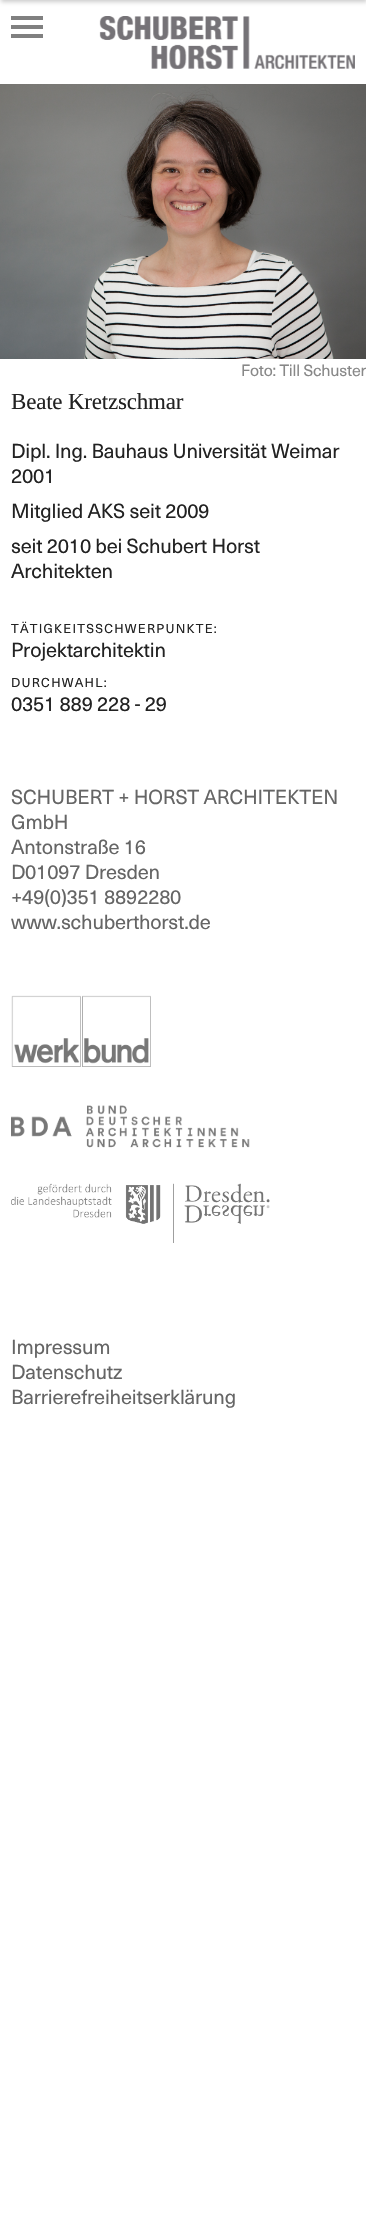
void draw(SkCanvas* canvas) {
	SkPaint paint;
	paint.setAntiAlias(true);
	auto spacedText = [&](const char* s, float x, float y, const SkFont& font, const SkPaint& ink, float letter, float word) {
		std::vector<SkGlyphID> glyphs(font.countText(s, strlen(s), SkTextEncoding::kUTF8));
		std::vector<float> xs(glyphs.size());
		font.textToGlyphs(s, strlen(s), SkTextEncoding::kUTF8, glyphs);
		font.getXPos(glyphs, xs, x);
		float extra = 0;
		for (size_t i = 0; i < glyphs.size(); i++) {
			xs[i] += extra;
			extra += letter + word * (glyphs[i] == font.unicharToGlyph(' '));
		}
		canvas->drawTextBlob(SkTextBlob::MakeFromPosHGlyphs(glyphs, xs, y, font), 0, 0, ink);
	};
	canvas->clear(0xffffffff);
	paint.setColor(0x33000000);
	paint.setMaskFilter(SkMaskFilter::MakeBlur(kNormal_SkBlurStyle, 2));
	canvas->drawRect(SkRect::MakeXYWH(1, -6, 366, 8), paint);
	paint.setMaskFilter(nullptr);
	paint.setColor(0xff808080);
	canvas->drawRect(SkRect::MakeXYWH(11, 16, 32, 4), paint);
	canvas->drawRect(SkRect::MakeXYWH(11, 25, 32, 4), paint);
	canvas->drawRect(SkRect::MakeXYWH(11, 34, 32, 4), paint);
	canvas->drawImageRect(SkImages::DeferredFromEncodedData(SkData::MakeFromFileName("img1.png")), SkRect::MakeXYWH(99, 16, 256, 53), SkSamplingOptions());
	canvas->drawImageRect(SkImages::DeferredFromEncodedData(SkData::MakeFromFileName("img2.png")), SkRect::MakeXYWH(0, 84, 366, 275), SkSamplingOptions());
	SkFont f1(fontMgr->matchFamilyStyle("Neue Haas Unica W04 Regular", SkFontStyle::Normal()), 16);
	f1.setSubpixel(true);
	paint.setColor(0xff888888);
	spacedText("Foto: Till Schuster", 241, 376, f1, paint, -0.2, 0);
	SkFont f2(fontMgr->matchFamilyStyle("Liberation Serif", SkFontStyle::Normal()), 23);
	f2.setSubpixel(true);
	paint.setColor(0xff222222);
	spacedText("Beate Kretzschmar", 11, 409, f2, paint, -0.2, 0);
	SkFont f3(fontMgr->matchFamilyStyle("Neue Haas Unica W04 Regular", SkFontStyle::Normal()), 20);
	f3.setSubpixel(true);
	spacedText("Dipl. Ing. Bauhaus Universität Weimar", 11, 458, f3, paint, -0.2, 0);
	spacedText("2001", 11, 483, f3, paint, -0.2, 0);
	spacedText("Mitglied AKS seit 2009", 11, 518, f3, paint, -0.2, 0);
	spacedText("seit 2010 bei Schubert Horst", 11, 553, f3, paint, -0.2, 0);
	spacedText("Architekten", 11, 578, f3, paint, -0.2, 0);
	SkFont f4(fontMgr->matchFamilyStyle("Neue Haas Unica W04 Regular", SkFontStyle::Normal()), 12.75);
	f4.setSubpixel(true);
	spacedText("TÄTIGKEITSSCHWERPUNKTE:", 11, 633, f4, paint, 1.25, 0);
	spacedText("Projektarchitektin", 11, 657, f3, paint, -0.2, 0);
	spacedText("DURCHWAHL:", 11, 687, f4, paint, 1.25, 0);
	spacedText("0351 889 228 - 29", 11, 711, f3, paint, -0.2, 0);
	paint.setColor(0xff656565);
	spacedText("SCHUBERT + HORST ARCHITEKTEN", 11, 804, f3, paint, -0.2, 0);
	spacedText("GmbH", 11, 829, f3, paint, -0.2, 0);
	spacedText("Antonstraße 16", 11, 854, f3, paint, -0.2, 0);
	spacedText("D‑01097 Dresden", 11, 879, f3, paint, -0.2, 0);
	spacedText("+49(0)351 889228‑0", 11, 904, f3, paint, -0.2, 0);
	spacedText("www.schubert‑horst.de", 11, 929, f3, paint, -0.2, 0);
	canvas->drawImageRect(SkImages::DeferredFromEncodedData(SkData::MakeFromFileName("img3.png")), SkRect::MakeXYWH(11, 995, 140, 72), SkSamplingOptions());
	canvas->drawImageRect(SkImages::DeferredFromEncodedData(SkData::MakeFromFileName("img4.png")), SkRect::MakeXYWH(11, 1105, 239, 43), SkSamplingOptions());
	canvas->drawImageRect(SkImages::DeferredFromEncodedData(SkData::MakeFromFileName("img5.png")), SkRect::MakeXYWH(11, 1183, 259, 60), SkSamplingOptions());
	spacedText("Impressum", 11, 1354, f3, paint, -0.2, 0);
	spacedText("Datenschutz", 11, 1379, f3, paint, -0.2, 0);
	spacedText("Barrierefreiheitserklärung", 11, 1404, f3, paint, -0.2, 0);
}
